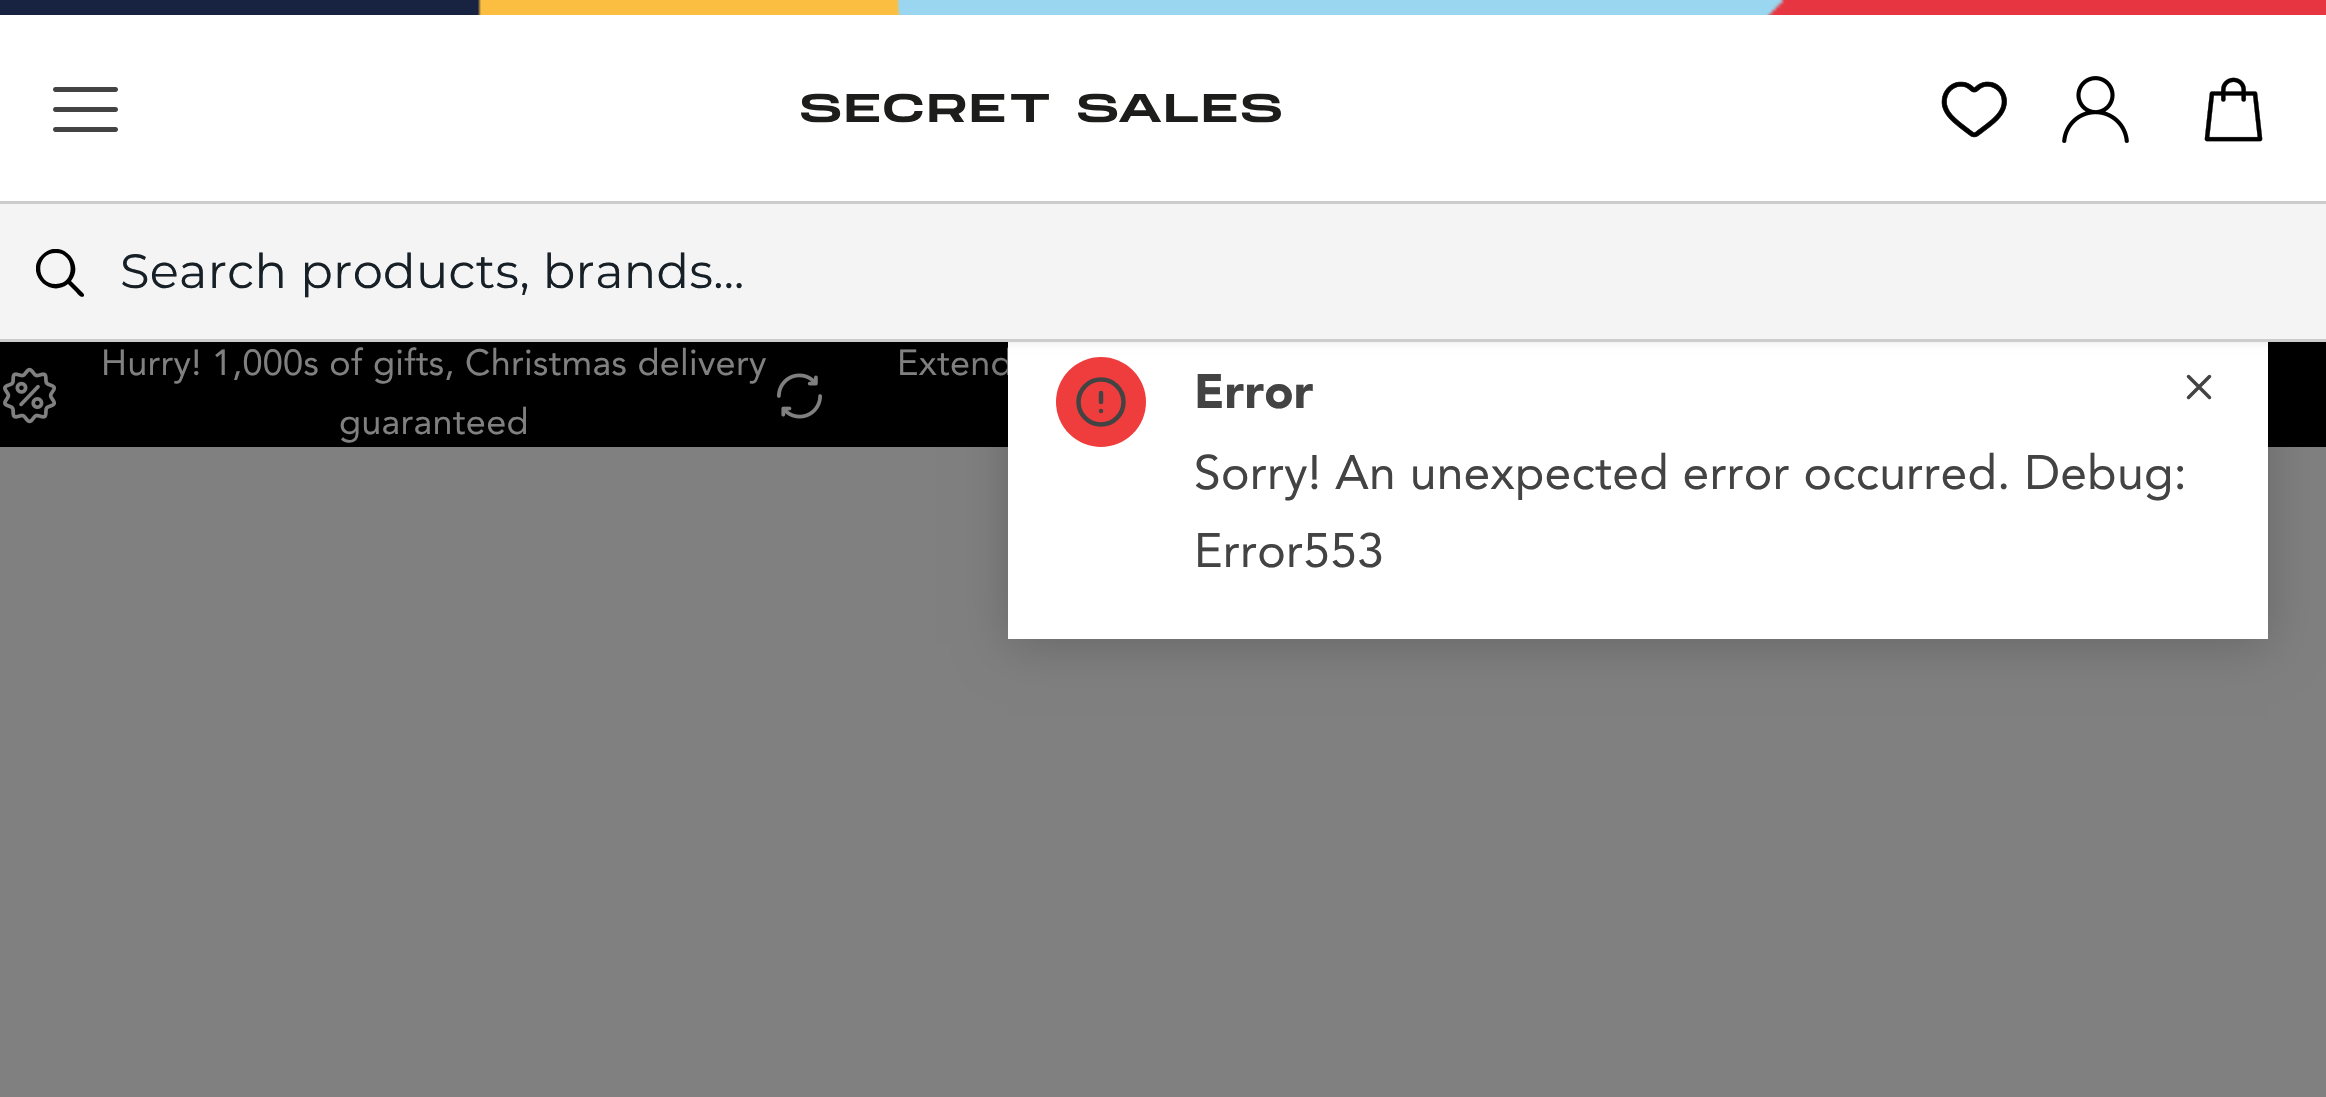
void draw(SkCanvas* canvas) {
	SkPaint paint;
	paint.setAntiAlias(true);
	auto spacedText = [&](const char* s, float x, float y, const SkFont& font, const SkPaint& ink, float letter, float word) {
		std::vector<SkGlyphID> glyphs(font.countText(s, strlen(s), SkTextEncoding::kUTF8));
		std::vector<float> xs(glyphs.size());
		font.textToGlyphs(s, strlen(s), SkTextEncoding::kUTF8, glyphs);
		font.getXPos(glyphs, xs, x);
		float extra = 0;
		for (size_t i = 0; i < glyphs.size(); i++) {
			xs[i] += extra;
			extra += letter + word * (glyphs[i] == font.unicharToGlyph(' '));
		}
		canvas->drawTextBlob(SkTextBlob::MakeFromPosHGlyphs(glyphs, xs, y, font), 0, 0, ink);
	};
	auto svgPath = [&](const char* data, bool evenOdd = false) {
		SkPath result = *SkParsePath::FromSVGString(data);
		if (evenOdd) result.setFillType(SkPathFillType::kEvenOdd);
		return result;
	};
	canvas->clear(0xff808080);
	paint.setColor(0xff000000);
	canvas->drawRect(SkRect::MakeXYWH(0, 342, 2326, 105), paint);
	SkFont f1(fontMgr->matchFamilyStyle("Avenir", SkFontStyle::Normal()), 36);
	f1.setSubpixel(true);
	paint.setColor(0xff808080);
	spacedText("Extend", 897, 375, f1, paint, 0.3, 0);
	paint.setColor(0x33000000);
	paint.setMaskFilter(SkMaskFilter::MakeBlur(kNormal_SkBlurStyle, 24));
	canvas->drawRect(SkRect::MakeXYWH(1008, 306, 1260, 339), paint);
	paint.setMaskFilter(nullptr);
	paint.setColor(0xffffffff);
	canvas->drawRect(SkRect::MakeXYWH(1008, 342, 1260, 297), paint);
	paint.setColor(0x0d000000);
	paint.setMaskFilter(SkMaskFilter::MakeBlur(kNormal_SkBlurStyle, 3));
	canvas->drawRect(SkRect::MakeXYWH(0, 3, 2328, 342), paint);
	paint.setMaskFilter(nullptr);
	paint.setColor(0xffffffff);
	canvas->drawRect(SkRect::MakeXYWH(0, 0, 2326, 201), paint);
	canvas->drawImageRect(SkImages::DeferredFromEncodedData(SkData::MakeFromFileName("img1.png")), SkRect::MakeXYWH(0, 0, 2326, 15), SkSamplingOptions());
	canvas->drawImageRect(SkImages::DeferredFromEncodedData(SkData::MakeFromFileName("img2.png")), SkRect::MakeXYWH(53, 87, 65, 45), SkSamplingOptions());
	canvas->drawImageRect(SkImages::DeferredFromEncodedData(SkData::MakeFromFileName("img3.png")), SkRect::MakeXYWH(801, 93, 480, 30), SkSamplingOptions());
	canvas->drawImageRect(SkImages::DeferredFromEncodedData(SkData::MakeFromFileName("img4.png")), SkRect::MakeXYWH(1941, 81, 66, 57), SkSamplingOptions());
	canvas->drawImageRect(SkImages::DeferredFromEncodedData(SkData::MakeFromFileName("img5.png")), SkRect::MakeXYWH(2062, 76, 67, 67), SkSamplingOptions());
	canvas->drawImageRect(SkImages::DeferredFromEncodedData(SkData::MakeFromFileName("img6.png")), SkRect::MakeXYWH(2204, 77, 59, 65), SkSamplingOptions());
	paint.setColor(0xffcccccc);
	canvas->drawRect(SkRect::MakeXYWH(0, 201, 2326, 3), paint);
	canvas->drawRect(SkRect::MakeXYWH(0, 339, 2326, 3), paint);
	paint.setColor(0xfff4f4f5);
	canvas->drawRect(SkRect::MakeXYWH(0, 204, 2326, 135), paint);
	canvas->save();
	canvas->clipRect(SkRect::MakeXYWH(36, 249, 48, 48));
	paint.setColor(0xff000000);
	canvas->drawPath(svgPath("M83 293L71 281C86 262 59 237 42 255C24 272 49 299 68 284L76 292C77 293 81 299 84 296C84 295 84 294 83 293ZM56 284C35 284 35 253 56 253C75 253 76 284 56 284Z"), paint);
	canvas->restore();
	SkFont f2(fontMgr->matchFamilyStyle("Montserrat", SkFontStyle::Normal()), 48);
	f2.setSubpixel(true);
	paint.setColor(0xff172026);
	spacedText("Search products, brands...", 120, 288, f2, paint, 0.3, 0);
	canvas->drawImageRect(SkImages::DeferredFromEncodedData(SkData::MakeFromFileName("img7.png")), SkRect::MakeXYWH(3, 367, 53, 57), SkSamplingOptions());
	paint.setColor(0xff808080);
	spacedText("Hurry! 1,000s of gifts, Christmas delivery", 101, 375, f1, paint, 0.3, 0);
	spacedText("guaranteed", 339, 434, f1, paint, 0.3, 0);
	canvas->drawImageRect(SkImages::DeferredFromEncodedData(SkData::MakeFromFileName("img8.png")), SkRect::MakeXYWH(777, 373, 45, 46), SkSamplingOptions());
	paint.setColor(0xffef3c3c);
	canvas->drawCircle(1101, 402, 45, paint);
	paint.setStroke(true);
	paint.setStrokeWidth(4.5);
	paint.setColor(0xff434343);
	canvas->drawCircle(1101, 402, 22.5, paint);
	paint.setStrokeCap(SkPaint::kRound_Cap);
	paint.setStrokeJoin(SkPaint::kRound_Join);
	canvas->drawPath(svgPath("M1101 393V402M1101 411H1101"), paint);
	SkFont f3(fontMgr->matchFamilyStyle("Avenir", SkFontStyle(900, SkFontStyle::kNormal_Width, SkFontStyle::kUpright_Slant)), 48);
	f3.setSubpixel(true);
	paint.setStroke(false);
	spacedText("Error", 1194, 408, f3, paint, 0.3, 0);
	paint.setStroke(true);
	paint.setStrokeWidth(3.5);
	canvas->drawPath(svgPath("M2209.5 376.5L2188.5 397.5M2188.5 376.5L2209.5 397.5"), paint);
	SkFont f4(fontMgr->matchFamilyStyle("Avenir", SkFontStyle::Normal()), 48);
	f4.setSubpixel(true);
	paint.setStroke(false);
	spacedText("Sorry! An unexpected error occurred. Debug:", 1194, 489, f4, paint, 0.3, 0);
	spacedText("Error553", 1194, 567, f4, paint, 0.3, 0);
}
